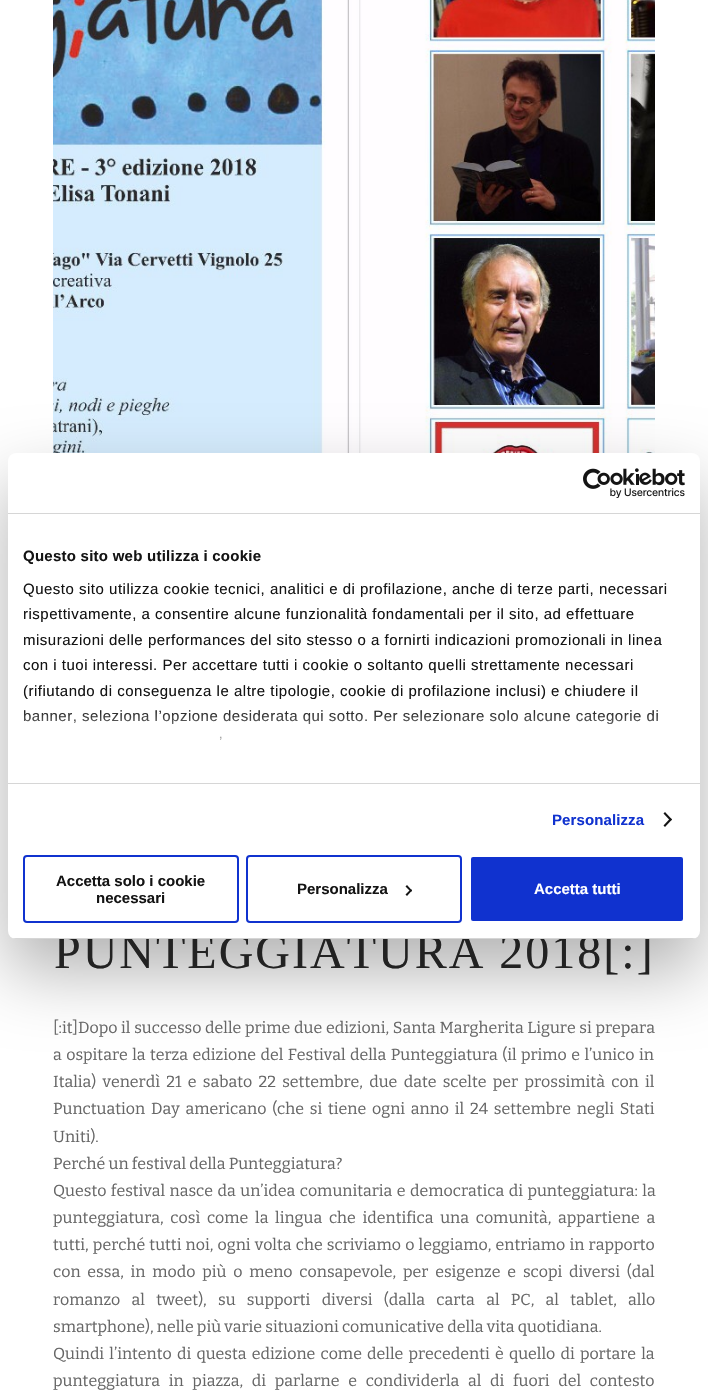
void draw(SkCanvas* canvas) {
	SkPaint paint;
	paint.setAntiAlias(true);
	auto spacedText = [&](const char* s, float x, float y, const SkFont& font, const SkPaint& ink, float letter, float word) {
		std::vector<SkGlyphID> glyphs(font.countText(s, strlen(s), SkTextEncoding::kUTF8));
		std::vector<float> xs(glyphs.size());
		font.textToGlyphs(s, strlen(s), SkTextEncoding::kUTF8, glyphs);
		font.getXPos(glyphs, xs, x);
		float extra = 0;
		for (size_t i = 0; i < glyphs.size(); i++) {
			xs[i] += extra;
			extra += letter + word * (glyphs[i] == font.unicharToGlyph(' '));
		}
		canvas->drawTextBlob(SkTextBlob::MakeFromPosHGlyphs(glyphs, xs, y, font), 0, 0, ink);
	};
	auto svgPath = [&](const char* data, bool evenOdd = false) {
		SkPath result = *SkParsePath::FromSVGString(data);
		if (evenOdd) result.setFillType(SkPathFillType::kEvenOdd);
		return result;
	};
	canvas->clear(0xffffffff);
	canvas->drawImageRect(SkImages::DeferredFromEncodedData(SkData::MakeFromFileName("img2.png")), SkRect::MakeXYWH(53, 0, 602, 453), SkSamplingOptions());
	paint.setColor(0x4d000000);
	paint.setMaskFilter(SkMaskFilter::MakeBlur(kNormal_SkBlurStyle, 34));
	canvas->drawRoundRect(SkRect::MakeXYWH(8, 485, 692, 486), 8, 8, paint);
	paint.setMaskFilter(nullptr);
	SkFont f1(fontMgr->matchFamilyStyle("Liberation Serif", SkFontStyle::Normal()), 48);
	f1.setSubpixel(true);
	paint.setColor(0xff222222);
	spacedText("PUNTEGGIATURA 2018[:]", 54, 968, f1, paint, 2, 0);
	paint.setColor(0xffffffff);
	canvas->drawRoundRect(SkRect::MakeXYWH(8, 453, 692, 486), 8, 8, paint);
	paint.setColor(0xffd6d6d6);
	canvas->drawRect(SkRect::MakeXYWH(8, 513, 692, 1), paint);
	canvas->drawImageRect(SkImages::DeferredFromEncodedData(SkData::MakeFromFileName("img1.png")), SkRect::MakeXYWH(583, 468, 102, 30), SkSamplingOptions());
	canvas->drawRect(SkRect::MakeXYWH(8, 783, 692, 1), paint);
	SkFont f2(fontMgr->matchFamilyStyle("Liberation Sans", SkFontStyle::Bold()), 15);
	f2.setSubpixel(true);
	paint.setColor(0xff141414);
	spacedText("Questo sito web utilizza i cookie", 23, 561, f2, paint, 0.25, 0);
	SkFont f3(fontMgr->matchFamilyStyle("Liberation Sans", SkFontStyle::Normal()), 15);
	f3.setSubpixel(true);
	spacedText("Questo sito utilizza cookie tecnici, analitici e di profilazione, anche di terze parti, necessari", 23, 594, f3, paint, 0.5, 0);
	spacedText("rispettivamente, a consentire alcune funzionalità fondamentali per il sito, ad effettuare", 23, 619, f3, paint, 0.5, 0);
	spacedText("misurazioni delle performances del sito stesso o a fornirti indicazioni promozionali in linea", 23, 645, f3, paint, 0.5, 0);
	spacedText("con i tuoi interessi. Per accettare tutti i cookie o soltanto quelli strettamente necessari", 23, 670, f3, paint, 0.5, 0);
	spacedText("(rifiutando di conseguenza le altre tipologie, cookie di profilazione inclusi) e chiudere il", 23, 696, f3, paint, 0.5, 0);
	spacedText("banner, seleziona l’opzione desiderata qui sotto. Per selezionare solo alcune categorie di", 23, 721, f3, paint, 0.5, 0);
	spacedText("’", 219, 747, f3, paint, 0.5, 0);
	{
		const SkColor colors[] = {0xffffffff, 0xccffffff, 0x00ffffff};
		const float stops[] = {0, 0.5, 1};
		const SkPoint ends[] = {{348, 783}, {348, 708}};
		paint.setShader(SkGradientShader::MakeLinear(ends, colors, stops, 3, SkTileMode::kClamp));
		paint.setAlpha(255);
	}
	canvas->drawRect(SkRect::MakeXYWH(24, 710, 634, 30), paint);
	paint.setShader(nullptr);
	paint.setColor(0xff1032cf);
	spacedText("Personalizza", 552, 825, f2, paint, 0.1, 0);
	paint.setColor(0xff141414);
	canvas->drawPath(svgPath("M665 812L672 819.5L670.5 821L663.5 813.5Z"), paint);
	canvas->drawPath(svgPath("M670.5 818L672 819.5L665 827L663.5 825.5Z"), paint);
	canvas->save();
	canvas->clipPath(svgPath("M16 453H692C696.5 453 700 456.5 700 461V931C700 935.5 696.5 939 692 939H16C11.5 939 8 935.5 8 931V461C8 456.5 11.5 453 16 453Z"), true);
	paint.setColor(0xffd6d6d6);
	canvas->drawRect(SkRect::MakeXYWH(8, 938, 692, 1), paint);
	canvas->restore();
	paint.setStroke(true);
	paint.setStrokeWidth(2);
	paint.setColor(0xff1032cf);
	canvas->drawRoundRect(SkRect::MakeXYWH(24, 856, 214, 66), 3, 3, paint);
	paint.setStroke(false);
	paint.setColor(0xff141414);
	canvas->drawString("Accetta solo i cookie", 56, 886, f2, paint);
	canvas->drawString("necessari", 96, 903, f2, paint);
	paint.setStroke(true);
	paint.setColor(0xff1032cf);
	canvas->drawRoundRect(SkRect::MakeXYWH(247, 856, 214, 66), 3, 3, paint);
	paint.setStroke(false);
	paint.setColor(0xff141414);
	canvas->drawString("Personalizza", 297, 894, f2, paint);
	canvas->drawPath(svgPath("M407 885L412 890.5L411 892L405.5 886.5Z"), paint);
	canvas->drawPath(svgPath("M411 889L412 890.5L407 896L405.5 894.5Z"), paint);
	paint.setColor(0xff1032cf);
	canvas->drawRoundRect(SkRect::MakeXYWH(470, 856, 214, 66), 3, 3, paint);
	paint.setStroke(true);
	paint.setColor(0xffffffff);
	canvas->drawRoundRect(SkRect::MakeXYWH(470, 856, 214, 66), 3, 3, paint);
	paint.setStroke(false);
	canvas->drawString("Accetta tutti", 534, 894, f2, paint);
	SkFont f4(fontMgr->matchFamilyStyle("Bitter", SkFontStyle(100, SkFontStyle::kNormal_Width, SkFontStyle::kUpright_Slant)), 16);
	f4.setSubpixel(true);
	paint.setColor(0xff666666);
	spacedText("[:it]Dopo il successo delle prime due edizioni, Santa Margherita Ligure si prepara", 53, 1033, f4, paint, 0, 0.5);
	spacedText("a ospitare la terza edizione del Festival della Punteggiatura (il primo e l’unico in", 53, 1060, f4, paint, 0, 1.25);
	spacedText("Italia) venerdì 21 e sabato 22 settembre, due date scelte per prossimità con il", 53, 1087, f4, paint, 0, 3.1);
	spacedText("Punctuation Day americano (che si tiene ogni anno il 24 settembre negli Stati", 53, 1114, f4, paint, 0, 2.6);
	canvas->drawString("Uniti).", 53, 1142, f4, paint);
	canvas->drawString("Perché un festival della Punteggiatura?", 53, 1169, f4, paint);
	spacedText("Questo festival nasce da un’idea comunitaria e democratica di punteggiatura: la", 53, 1196, f4, paint, 0, 1.25);
	spacedText("punteggiatura, così come la lingua che identifica una comunità, appartiene a", 53, 1223, f4, paint, 0, 3.5);
	spacedText("tutti, perché tutti noi, ogni volta che scriviamo o leggiamo, entriamo in rapporto", 53, 1250, f4, paint, 0, 1);
	spacedText("con essa, in modo più o meno consapevole, per esigenze e scopi diversi (dal", 53, 1277, f4, paint, 0, 3.6);
	spacedText("romanzo al tweet), su supporti diversi (dalla carta al PC, al tablet, allo", 53, 1305, f4, paint, 0, 8.1);
	canvas->drawString("smartphone), nelle più varie situazioni comunicative della vita quotidiana.", 53, 1332, f4, paint);
	spacedText("Quindi l’intento di questa edizione come delle precedenti è quello di portare la", 53, 1359, f4, paint, 0, 2);
	spacedText("punteggiatura in piazza, di parlarne e condividerla al di fuori del contesto", 53, 1386, f4, paint, 0, 5.5);
}
